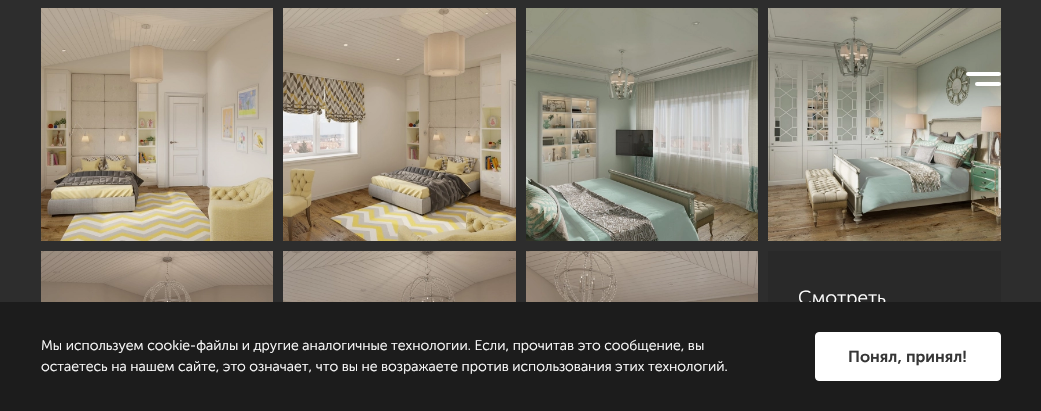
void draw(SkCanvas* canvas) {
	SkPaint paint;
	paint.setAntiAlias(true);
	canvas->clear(0xff2d2d2d);
	canvas->drawImageRect(SkImages::DeferredFromEncodedData(SkData::MakeFromFileName("img4.png")), SkRect::MakeXYWH(768, 8, 233, 233), SkSamplingOptions());
	paint.setColor(0xffffffff);
	canvas->drawRoundRect(SkRect::MakeXYWH(966, 72, 35, 4), 2, 2, paint);
	canvas->drawRoundRect(SkRect::MakeXYWH(975, 82, 26, 4), 2, 2, paint);
	canvas->drawImageRect(SkImages::DeferredFromEncodedData(SkData::MakeFromFileName("img1.png")), SkRect::MakeXYWH(41, 8, 232, 233), SkSamplingOptions());
	canvas->drawImageRect(SkImages::DeferredFromEncodedData(SkData::MakeFromFileName("img2.png")), SkRect::MakeXYWH(283, 8, 233, 233), SkSamplingOptions());
	canvas->drawImageRect(SkImages::DeferredFromEncodedData(SkData::MakeFromFileName("img3.png")), SkRect::MakeXYWH(526, 8, 232, 233), SkSamplingOptions());
	canvas->drawImageRect(SkImages::DeferredFromEncodedData(SkData::MakeFromFileName("img5.png")), SkRect::MakeXYWH(41, 251, 232, 51), SkSamplingOptions());
	canvas->drawImageRect(SkImages::DeferredFromEncodedData(SkData::MakeFromFileName("img6.png")), SkRect::MakeXYWH(283, 251, 233, 51), SkSamplingOptions());
	canvas->drawImageRect(SkImages::DeferredFromEncodedData(SkData::MakeFromFileName("img7.png")), SkRect::MakeXYWH(526, 251, 232, 51), SkSamplingOptions());
	paint.setColor(0xff292929);
	canvas->drawRect(SkRect::MakeXYWH(768, 251, 233, 51), paint);
	SkFont f1(fontMgr->matchFamilyStyle("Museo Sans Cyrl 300", SkFontStyle(300, SkFontStyle::kNormal_Width, SkFontStyle::kUpright_Slant)), 19);
	f1.setSubpixel(true);
	paint.setColor(0xffffffff);
	canvas->drawString("Смотреть", 798, 304, f1, paint);
	paint.setColor(0xff1c1c1c);
	canvas->drawRect(SkRect::MakeXYWH(0, 302, 1041, 109), paint);
	SkFont f2(fontMgr->matchFamilyStyle("Museo Sans Cyrl 300", SkFontStyle(300, SkFontStyle::kNormal_Width, SkFontStyle::kUpright_Slant)), 14);
	f2.setSubpixel(true);
	paint.setColor(0xffffffff);
	canvas->drawString("Мы используем cookie-файлы и другие аналогичные технологии. Если, прочитав это сообщение, вы", 41, 350, f2, paint);
	canvas->drawString("остаетесь на нашем сайте, это означает, что вы не возражаете против использования этих технологий.", 41, 371, f2, paint);
	canvas->drawRoundRect(SkRect::MakeXYWH(815.5, 332.5, 185, 48), 3.5, 3.5, paint);
	paint.setStroke(true);
	paint.setStrokeWidth(1);
	canvas->drawRoundRect(SkRect::MakeXYWH(815.5, 332.5, 185, 48), 3.5, 3.5, paint);
	SkFont f3(fontMgr->matchFamilyStyle("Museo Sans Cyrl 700", SkFontStyle(600, SkFontStyle::kNormal_Width, SkFontStyle::kUpright_Slant)), 16);
	f3.setSubpixel(true);
	paint.setStroke(false);
	paint.setColor(0xff363636);
	canvas->drawString("Понял, принял!", 848, 362, f3, paint);
}
